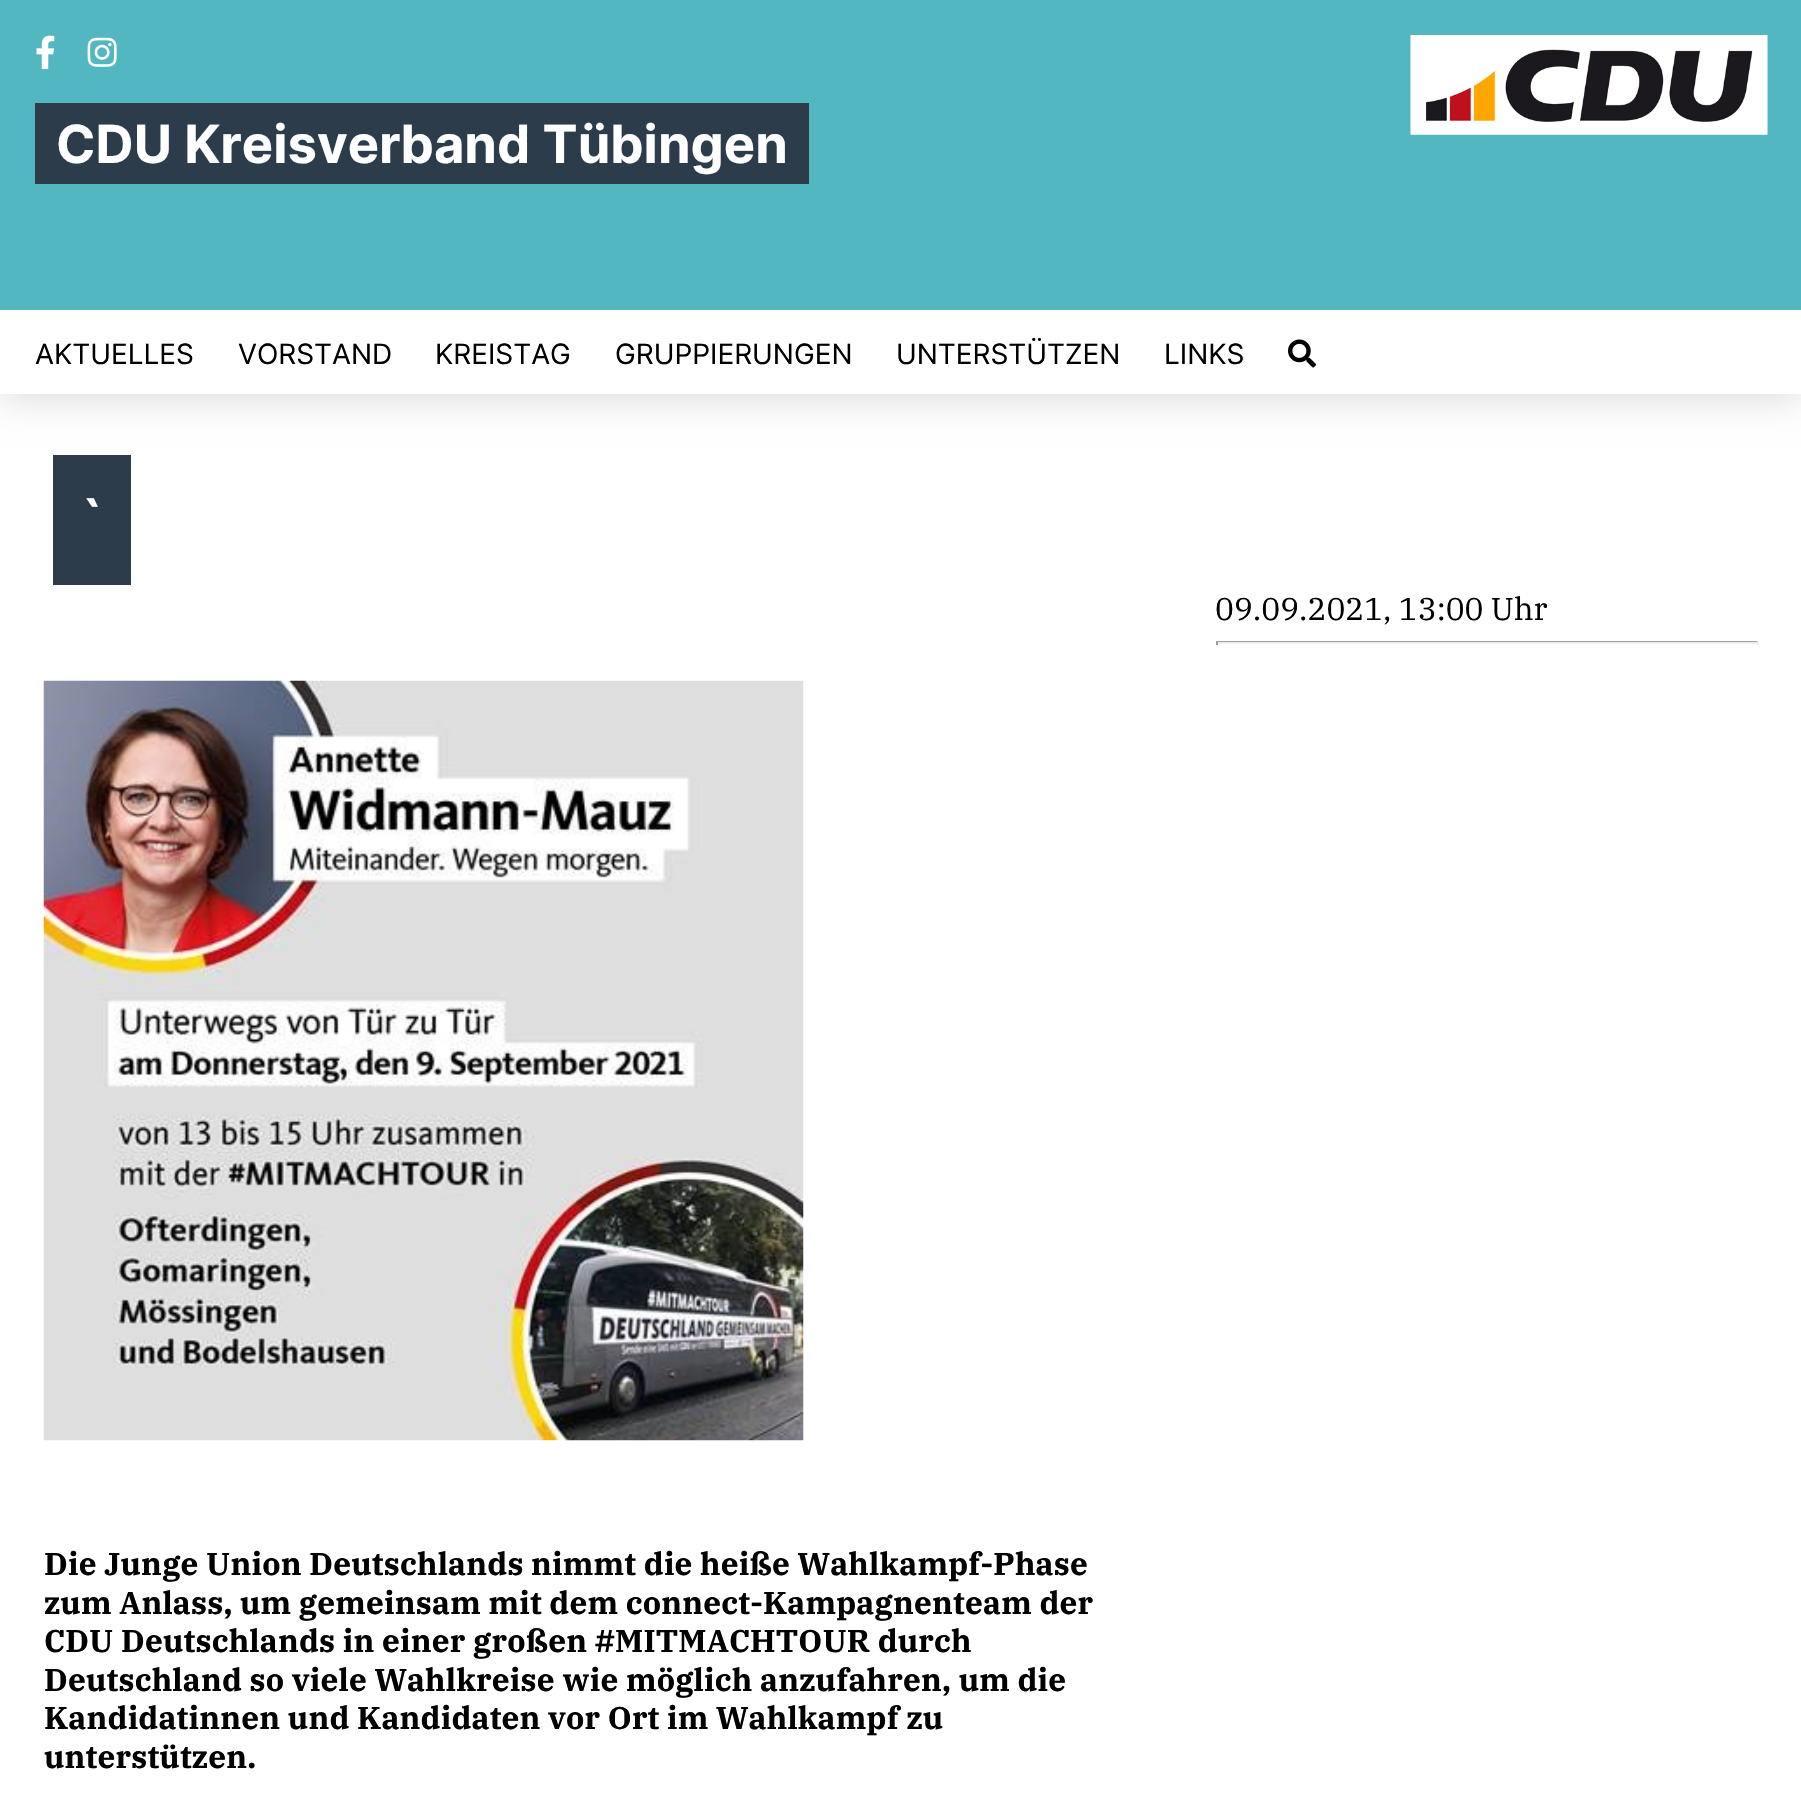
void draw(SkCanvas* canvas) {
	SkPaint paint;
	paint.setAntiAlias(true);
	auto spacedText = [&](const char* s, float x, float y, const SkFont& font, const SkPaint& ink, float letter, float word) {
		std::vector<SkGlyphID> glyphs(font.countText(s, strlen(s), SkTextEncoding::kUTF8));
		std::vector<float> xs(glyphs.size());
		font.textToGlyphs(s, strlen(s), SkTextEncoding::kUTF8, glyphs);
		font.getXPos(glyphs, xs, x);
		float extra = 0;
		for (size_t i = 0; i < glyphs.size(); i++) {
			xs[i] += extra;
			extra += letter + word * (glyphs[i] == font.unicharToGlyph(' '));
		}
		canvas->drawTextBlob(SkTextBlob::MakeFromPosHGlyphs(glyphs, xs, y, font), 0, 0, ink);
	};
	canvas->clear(0xffffffff);
	paint.setColor(0x26000000);
	paint.setMaskFilter(SkMaskFilter::MakeBlur(kNormal_SkBlurStyle, 18.5));
	canvas->drawRect(SkRect::MakeXYWH(0, 4, 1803, 393), paint);
	paint.setMaskFilter(nullptr);
	paint.setColor(0xff52b7c1);
	canvas->drawRect(SkRect::MakeXYWH(0, 0, 1801, 310), paint);
	canvas->drawImageRect(SkImages::DeferredFromEncodedData(SkData::MakeFromFileName("img1.png")), SkRect::MakeXYWH(1410, 35, 358, 100), SkSamplingOptions());
	canvas->drawImageRect(SkImages::DeferredFromEncodedData(SkData::MakeFromFileName("img2.png")), SkRect::MakeXYWH(36, 35, 19, 34), SkSamplingOptions());
	canvas->drawImageRect(SkImages::DeferredFromEncodedData(SkData::MakeFromFileName("img3.png")), SkRect::MakeXYWH(87, 37, 30, 30), SkSamplingOptions());
	paint.setColor(0xff2d3c4b);
	canvas->drawRect(SkRect::MakeXYWH(35, 103, 774, 81), paint);
	SkFont f1(fontMgr->matchFamilyStyle("Inter", SkFontStyle::Bold()), 52.5);
	f1.setSubpixel(true);
	paint.setColor(0xffffffff);
	canvas->drawString("CDU Kreisverband Tübingen", 56, 163, f1, paint);
	canvas->drawRect(SkRect::MakeXYWH(0, 310, 1801, 84), paint);
	SkFont f2(fontMgr->matchFamilyStyle("Inter", SkFontStyle::Normal()), 28);
	f2.setSubpixel(true);
	paint.setColor(0xff000000);
	canvas->drawString("AKTUELLES", 35, 364, f2, paint);
	canvas->drawString("VORSTAND", 238, 364, f2, paint);
	canvas->drawString("KREISTAG", 435, 364, f2, paint);
	canvas->drawString("GRUPPIERUNGEN", 615, 364, f2, paint);
	canvas->drawString("UNTERSTÜTZEN", 896, 364, f2, paint);
	canvas->drawString("LINKS", 1164, 364, f2, paint);
	canvas->drawImageRect(SkImages::DeferredFromEncodedData(SkData::MakeFromFileName("img4.png")), SkRect::MakeXYWH(1288, 339, 28, 29), SkSamplingOptions());
	paint.setColor(0xff2d3c4b);
	canvas->drawRect(SkRect::MakeXYWH(53, 455, 78, 130), paint);
	paint.setColor(0xffffffff);
	spacedText("`", 79, 539, f1, paint, 1, 0);
	SkFont f3(fontMgr->matchFamilyStyle("IBM Plex Serif", SkFontStyle::Normal()), 31.5);
	f3.setSubpixel(true);
	paint.setColor(0xff000000);
	canvas->drawString("09.09.2021, 13:00 Uhr", 1215, 620, f3, paint);
	paint.setColor(0xff9f9f9f);
	canvas->drawRect(SkRect::MakeXYWH(1216, 641, 543, 1), paint);
	paint.setColor(0xffeeeeee);
	canvas->drawRect(SkRect::MakeXYWH(1757, 641, 2, 4), paint);
	canvas->drawRect(SkRect::MakeXYWH(1216, 642, 543, 2), paint);
	paint.setColor(0xff9f9f9f);
	canvas->drawRect(SkRect::MakeXYWH(1216, 641, 2, 4), paint);
	canvas->drawImageRect(SkImages::DeferredFromEncodedData(SkData::MakeFromFileName("img5.png")), SkRect::MakeXYWH(43, 680, 761, 761), SkSamplingOptions());
	SkFont f4(fontMgr->matchFamilyStyle("IBM Plex Serif", SkFontStyle::Bold()), 31.5);
	f4.setSubpixel(true);
	paint.setColor(0xff000000);
	spacedText("Die Junge Union Deutschlands nimmt die heiße Wahlkampf-Phase", 44, 1575, f4, paint, 0.18, 0);
	spacedText("zum Anlass, um gemeinsam mit dem connect-Kampagnenteam der", 44, 1614, f4, paint, 0.18, 0);
	spacedText("CDU Deutschlands in einer großen #MITMACHTOUR durch", 44, 1652, f4, paint, 0.18, 0);
	spacedText("Deutschland so viele Wahlkreise wie möglich anzufahren, um die", 44, 1691, f4, paint, 0.18, 0);
	spacedText("Kandidatinnen und Kandidaten vor Ort im Wahlkampf zu", 44, 1729, f4, paint, 0.18, 0);
	spacedText("unterstützen.", 44, 1768, f4, paint, 0.18, 0);
}
